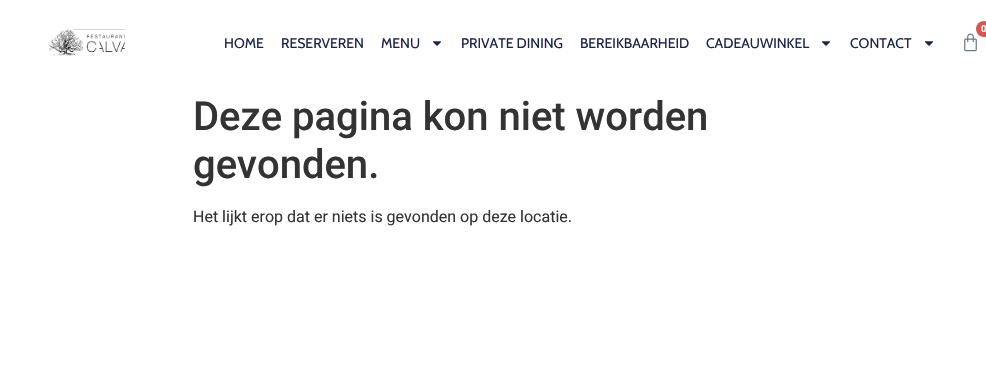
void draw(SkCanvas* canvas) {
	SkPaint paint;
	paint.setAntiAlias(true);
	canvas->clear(0xffffffff);
	canvas->drawImageRect(SkImages::DeferredFromEncodedData(SkData::MakeFromFileName("img1.png")), SkRect::MakeXYWH(49, 29, 76, 27), SkSamplingOptions());
	SkFont f1(fontMgr->matchFamilyStyle("Cabin", SkFontStyle::Normal()), 14);
	f1.setSubpixel(true);
	paint.setColor(0xff1c244b);
	canvas->drawString("HOME", 224, 48, f1, paint);
	canvas->drawString("RESERVEREN", 281, 48, f1, paint);
	canvas->drawString("MENU", 381, 48, f1, paint);
	canvas->drawImageRect(SkImages::DeferredFromEncodedData(SkData::MakeFromFileName("img2.png")), SkRect::MakeXYWH(433, 41, 8, 5), SkSamplingOptions());
	canvas->drawString("PRIVATE DINING", 461, 48, f1, paint);
	canvas->drawString("BEREIKBAARHEID", 580, 48, f1, paint);
	canvas->drawString("CADEAUWINKEL", 706, 48, f1, paint);
	canvas->drawImageRect(SkImages::DeferredFromEncodedData(SkData::MakeFromFileName("img2.png")), SkRect::MakeXYWH(822, 41, 8, 5), SkSamplingOptions());
	canvas->drawString("CONTACT", 850, 48, f1, paint);
	canvas->drawImageRect(SkImages::DeferredFromEncodedData(SkData::MakeFromFileName("img2.png")), SkRect::MakeXYWH(925, 41, 8, 5), SkSamplingOptions());
	canvas->drawImageRect(SkImages::DeferredFromEncodedData(SkData::MakeFromFileName("img3.png")), SkRect::MakeXYWH(964, 33, 13, 19), SkSamplingOptions());
	paint.setColor(0xffd9534f);
	canvas->drawCircle(984, 29, 8, paint);
	SkFont f2(fontMgr->matchFamilyStyle("Liberation Sans", SkFontStyle::Bold()), 10);
	f2.setSubpixel(true);
	paint.setColor(0xffffffff);
	canvas->drawString("0", 981, 32, f2, paint);
	SkFont f3(fontMgr->matchFamilyStyle("Roboto", SkFontStyle(500, SkFontStyle::kNormal_Width, SkFontStyle::kUpright_Slant)), 40);
	f3.setSubpixel(true);
	paint.setColor(0xff333333);
	canvas->drawString("Deze pagina kon niet worden", 193, 130, f3, paint);
	canvas->drawString("gevonden.", 193, 178, f3, paint);
	SkFont f4(fontMgr->matchFamilyStyle("Roboto", SkFontStyle::Normal()), 16);
	f4.setSubpixel(true);
	canvas->drawString("Het lijkt erop dat er niets is gevonden op deze locatie.", 193, 222, f4, paint);
}
